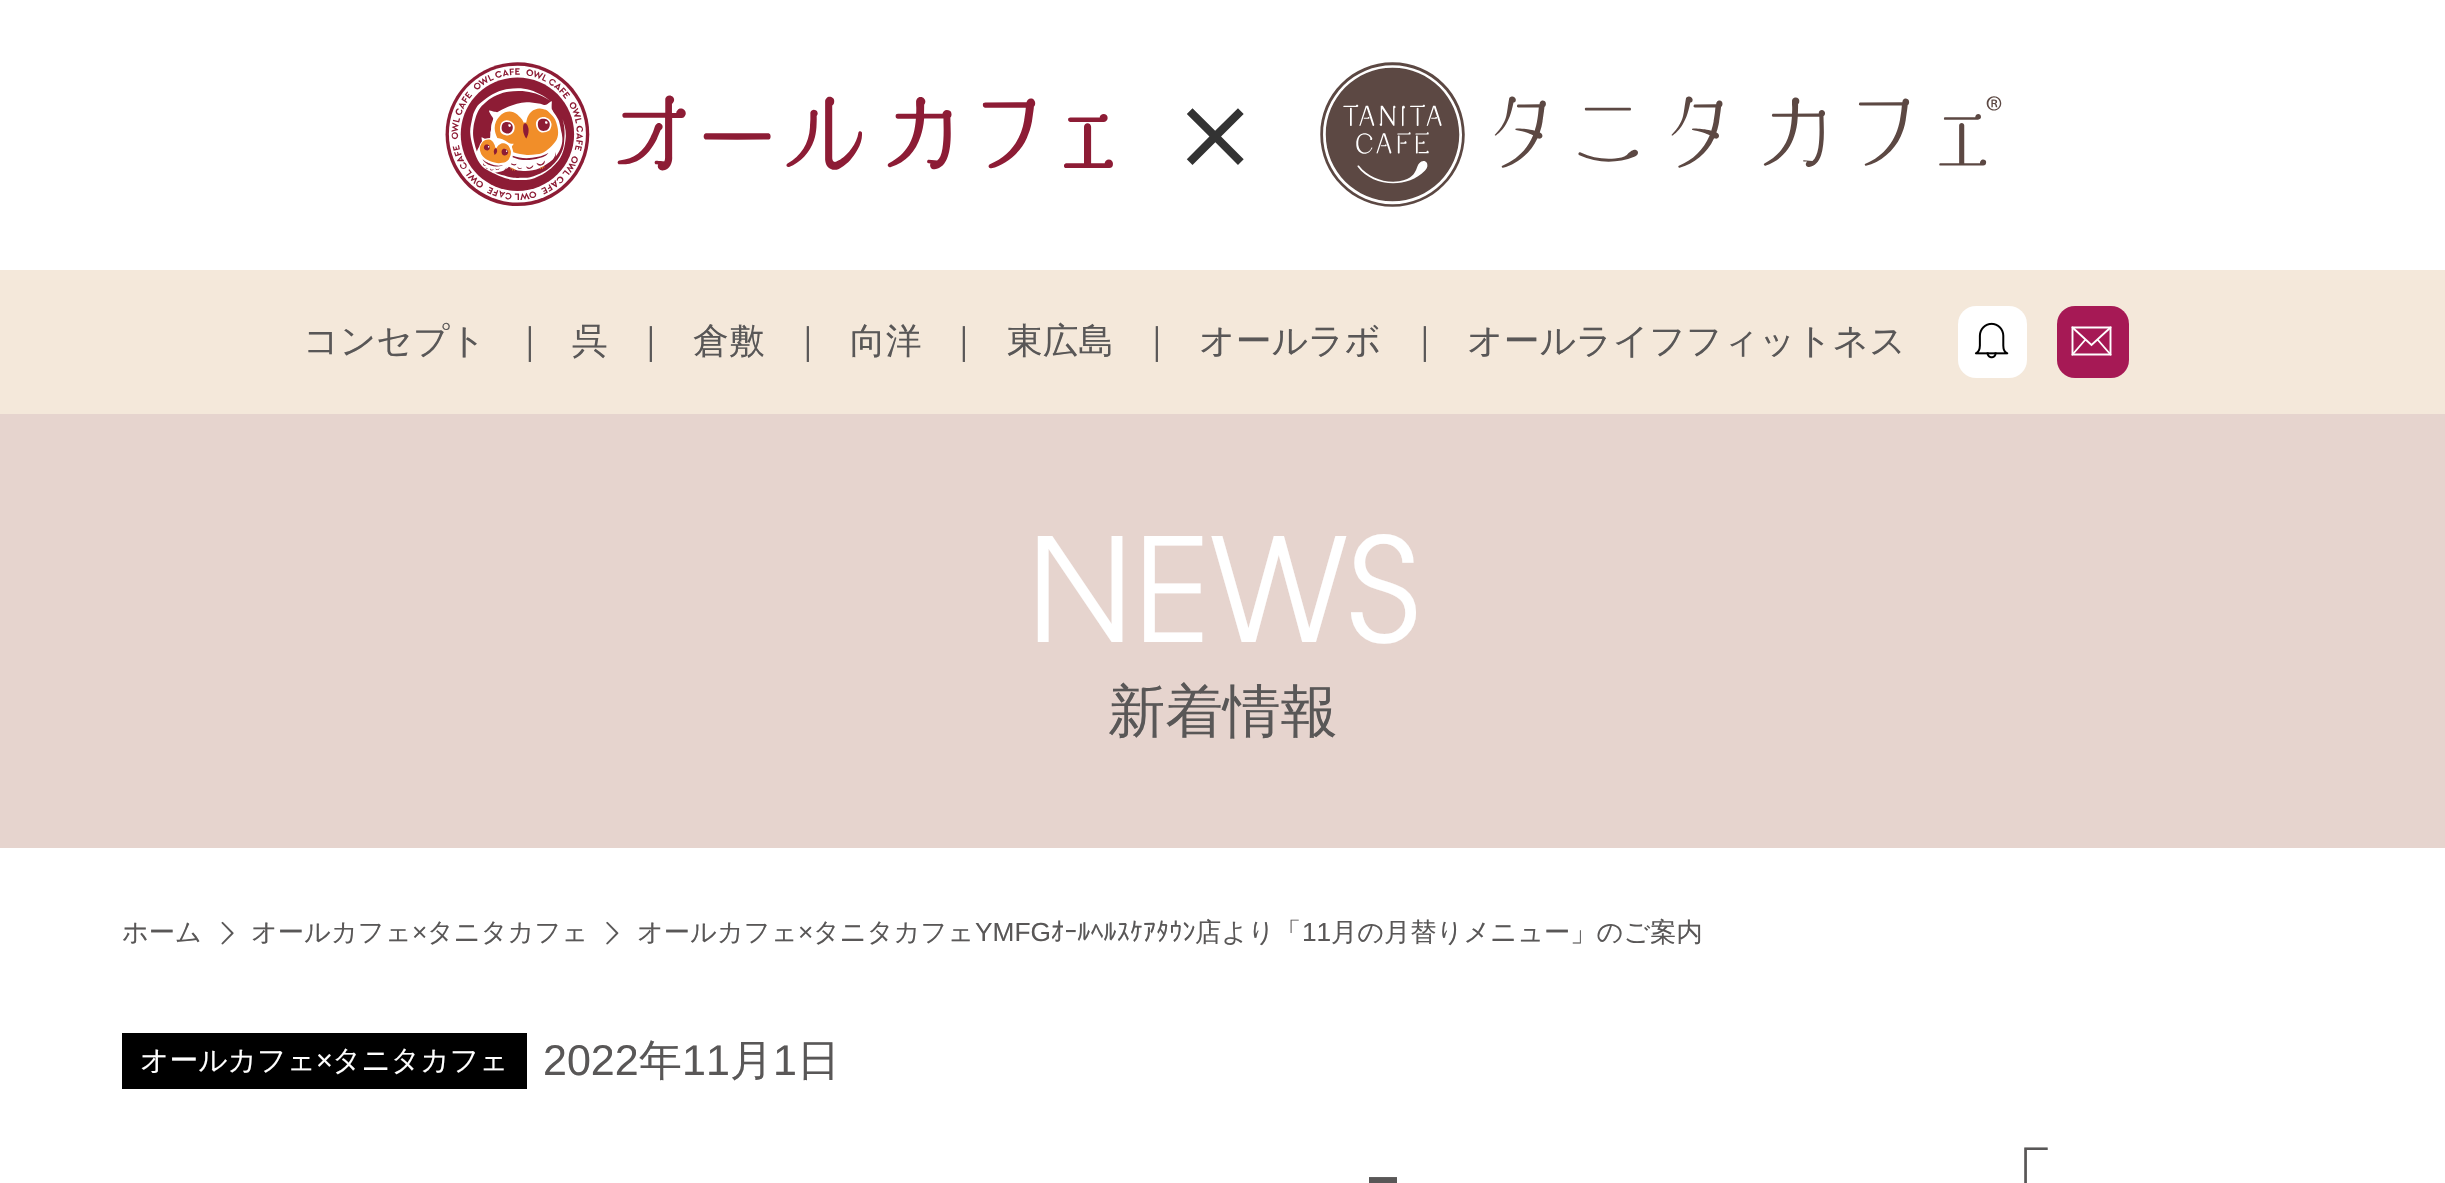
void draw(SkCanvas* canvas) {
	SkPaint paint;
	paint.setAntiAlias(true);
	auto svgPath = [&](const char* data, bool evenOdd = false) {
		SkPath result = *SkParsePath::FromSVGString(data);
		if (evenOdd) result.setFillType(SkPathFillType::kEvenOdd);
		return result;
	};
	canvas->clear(0xffffffff);
	canvas->drawImageRect(SkImages::DeferredFromEncodedData(SkData::MakeFromFileName("img1.png")), SkRect::MakeXYWH(445, 62, 1557, 145), SkSamplingOptions());
	paint.setColor(0xfff4e8da);
	canvas->drawRect(SkRect::MakeXYWH(0, 270, 2445, 144), paint);
	SkFont f1(fontMgr->matchFamilyStyle("WenQuanYi Zen Hei", SkFontStyle(500, SkFontStyle::kNormal_Width, SkFontStyle::kUpright_Slant)), 35.8);
	f1.setSubpixel(true);
	paint.setColor(0xff595757);
	canvas->drawString("コンセプト", 303, 353, f1, paint);
	canvas->drawString("｜", 512, 353, f1, paint);
	canvas->drawString("呉", 572, 353, f1, paint);
	canvas->drawString("｜", 633, 353, f1, paint);
	canvas->drawString("倉敷", 693, 353, f1, paint);
	canvas->drawString("｜", 790, 353, f1, paint);
	canvas->drawString("向洋", 850, 353, f1, paint);
	canvas->drawString("｜", 946, 353, f1, paint);
	canvas->drawString("東広島", 1007, 353, f1, paint);
	canvas->drawString("｜", 1139, 353, f1, paint);
	canvas->drawString("オールラボ", 1199, 353, f1, paint);
	canvas->drawString("｜", 1407, 353, f1, paint);
	canvas->drawString("オールライフフィットネス", 1467, 353, f1, paint);
	paint.setColor(0xffffffff);
	canvas->drawRoundRect(SkRect::MakeXYWH(1958, 306, 69, 72), 18, 18, paint);
	canvas->drawImageRect(SkImages::DeferredFromEncodedData(SkData::MakeFromFileName("img2.png")), SkRect::MakeXYWH(1974, 322, 35, 37), SkSamplingOptions());
	paint.setColor(0xffa61955);
	canvas->drawRoundRect(SkRect::MakeXYWH(2057, 306, 72, 72), 18, 18, paint);
	paint.setStroke(true);
	paint.setStrokeWidth(1.9);
	paint.setStrokeCap(SkPaint::kSquare_Cap);
	paint.setColor(0xffffffff);
	canvas->drawPath(svgPath("M2072.5 327.5H2110.5V354.5H2072.5Z"), paint);
	paint.setStrokeCap(SkPaint::kRound_Cap);
	canvas->drawPath(svgPath("M2072.5 327.5L2091.5 345L2110.5 327.5M2072.5 354.5L2085.5 339.5M2110.5 354.5L2097.5 339.5"), paint);
	paint.setStroke(false);
	paint.setColor(0xffe6d4ce);
	canvas->drawRect(SkRect::MakeXYWH(0, 414, 2445, 434), paint);
	SkFont f2(fontMgr->matchFamilyStyle("TeX Gyre Adventor", SkFontStyle::Normal()), 143.5);
	f2.setSubpixel(true);
	paint.setColor(0xffffffff);
	canvas->drawString("NEWS", 1027, 642, f2, paint);
	SkFont f3(fontMgr->matchFamilyStyle("WenQuanYi Zen Hei", SkFontStyle(500, SkFontStyle::kNormal_Width, SkFontStyle::kUpright_Slant)), 57.5);
	f3.setSubpixel(true);
	paint.setColor(0xff595757);
	canvas->drawString("新着情報", 1108, 731, f3, paint);
	SkFont f4(fontMgr->matchFamilyStyle("WenQuanYi Zen Hei", SkFontStyle(500, SkFontStyle::kNormal_Width, SkFontStyle::kUpright_Slant)), 26.25);
	f4.setSubpixel(true);
	canvas->drawString("ホーム", 122, 941, f4, paint);
	canvas->drawImageRect(SkImages::DeferredFromEncodedData(SkData::MakeFromFileName("img3.png")), SkRect::MakeXYWH(221, 921, 13, 24), SkSamplingOptions());
	canvas->drawString("オールカフェ", 251, 941, f4, paint);
	SkFont f5(fontMgr->matchFamilyStyle("Liberation Sans", SkFontStyle::Normal()), 26.25);
	f5.setSubpixel(true);
	canvas->drawString("×", 412, 941, f5, paint);
	canvas->drawString("タニタカフェ", 427, 941, f4, paint);
	canvas->drawImageRect(SkImages::DeferredFromEncodedData(SkData::MakeFromFileName("img4.png")), SkRect::MakeXYWH(606, 921, 13, 24), SkSamplingOptions());
	canvas->drawString("オールカフェ", 637, 941, f4, paint);
	canvas->drawString("×", 798, 941, f5, paint);
	canvas->drawString("タニタカフェ", 813, 941, f4, paint);
	canvas->drawString("YMFG", 975, 941, f5, paint);
	SkFont f6(fontMgr->matchFamilyStyle("IPAPGothic", SkFontStyle::Normal()), 26.25);
	f6.setSubpixel(true);
	canvas->drawString("ｵｰﾙﾍﾙｽｹｱﾀｳﾝ", 1051, 941, f6, paint);
	canvas->drawString("店より「", 1195, 941, f4, paint);
	canvas->drawString("11", 1302, 941, f5, paint);
	canvas->drawString("月の月替りメニュー」のご案内", 1331, 941, f4, paint);
	paint.setColor(0xff000000);
	canvas->drawRect(SkRect::MakeXYWH(122, 1033, 405, 56), paint);
	SkFont f7(fontMgr->matchFamilyStyle("WenQuanYi Zen Hei", SkFontStyle(500, SkFontStyle::kNormal_Width, SkFontStyle::kUpright_Slant)), 28.75);
	f7.setSubpixel(true);
	paint.setColor(0xffffffff);
	canvas->drawString("オールカフェ", 140, 1070, f7, paint);
	SkFont f8(fontMgr->matchFamilyStyle("Liberation Sans", SkFontStyle::Normal()), 28.75);
	f8.setSubpixel(true);
	canvas->drawString("×", 316, 1070, f8, paint);
	canvas->drawString("タニタカフェ", 332, 1070, f7, paint);
	SkFont f9(fontMgr->matchFamilyStyle("Liberation Sans", SkFontStyle::Normal()), 43);
	f9.setSubpixel(true);
	paint.setColor(0xff595757);
	canvas->drawString("2022", 543, 1075, f9, paint);
	SkFont f10(fontMgr->matchFamilyStyle("WenQuanYi Zen Hei", SkFontStyle(500, SkFontStyle::kNormal_Width, SkFontStyle::kUpright_Slant)), 43);
	f10.setSubpixel(true);
	canvas->drawString("年", 639, 1075, f10, paint);
	canvas->drawString("11", 682, 1075, f9, paint);
	canvas->drawString("月", 730, 1075, f10, paint);
	canvas->drawString("1", 773, 1075, f9, paint);
	canvas->drawString("日", 797, 1075, f10, paint);
	SkFont f11(fontMgr->matchFamilyStyle("IPAPGothic", SkFontStyle::Normal()), 76);
	f11.setSubpixel(true);
	canvas->drawString("ｰ", 1364, 1209, f11, paint);
	SkFont f12(fontMgr->matchFamilyStyle("WenQuanYi Zen Hei", SkFontStyle(500, SkFontStyle::kNormal_Width, SkFontStyle::kUpright_Slant)), 76);
	f12.setSubpixel(true);
	canvas->drawString("「", 1979, 1209, f12, paint);
}
